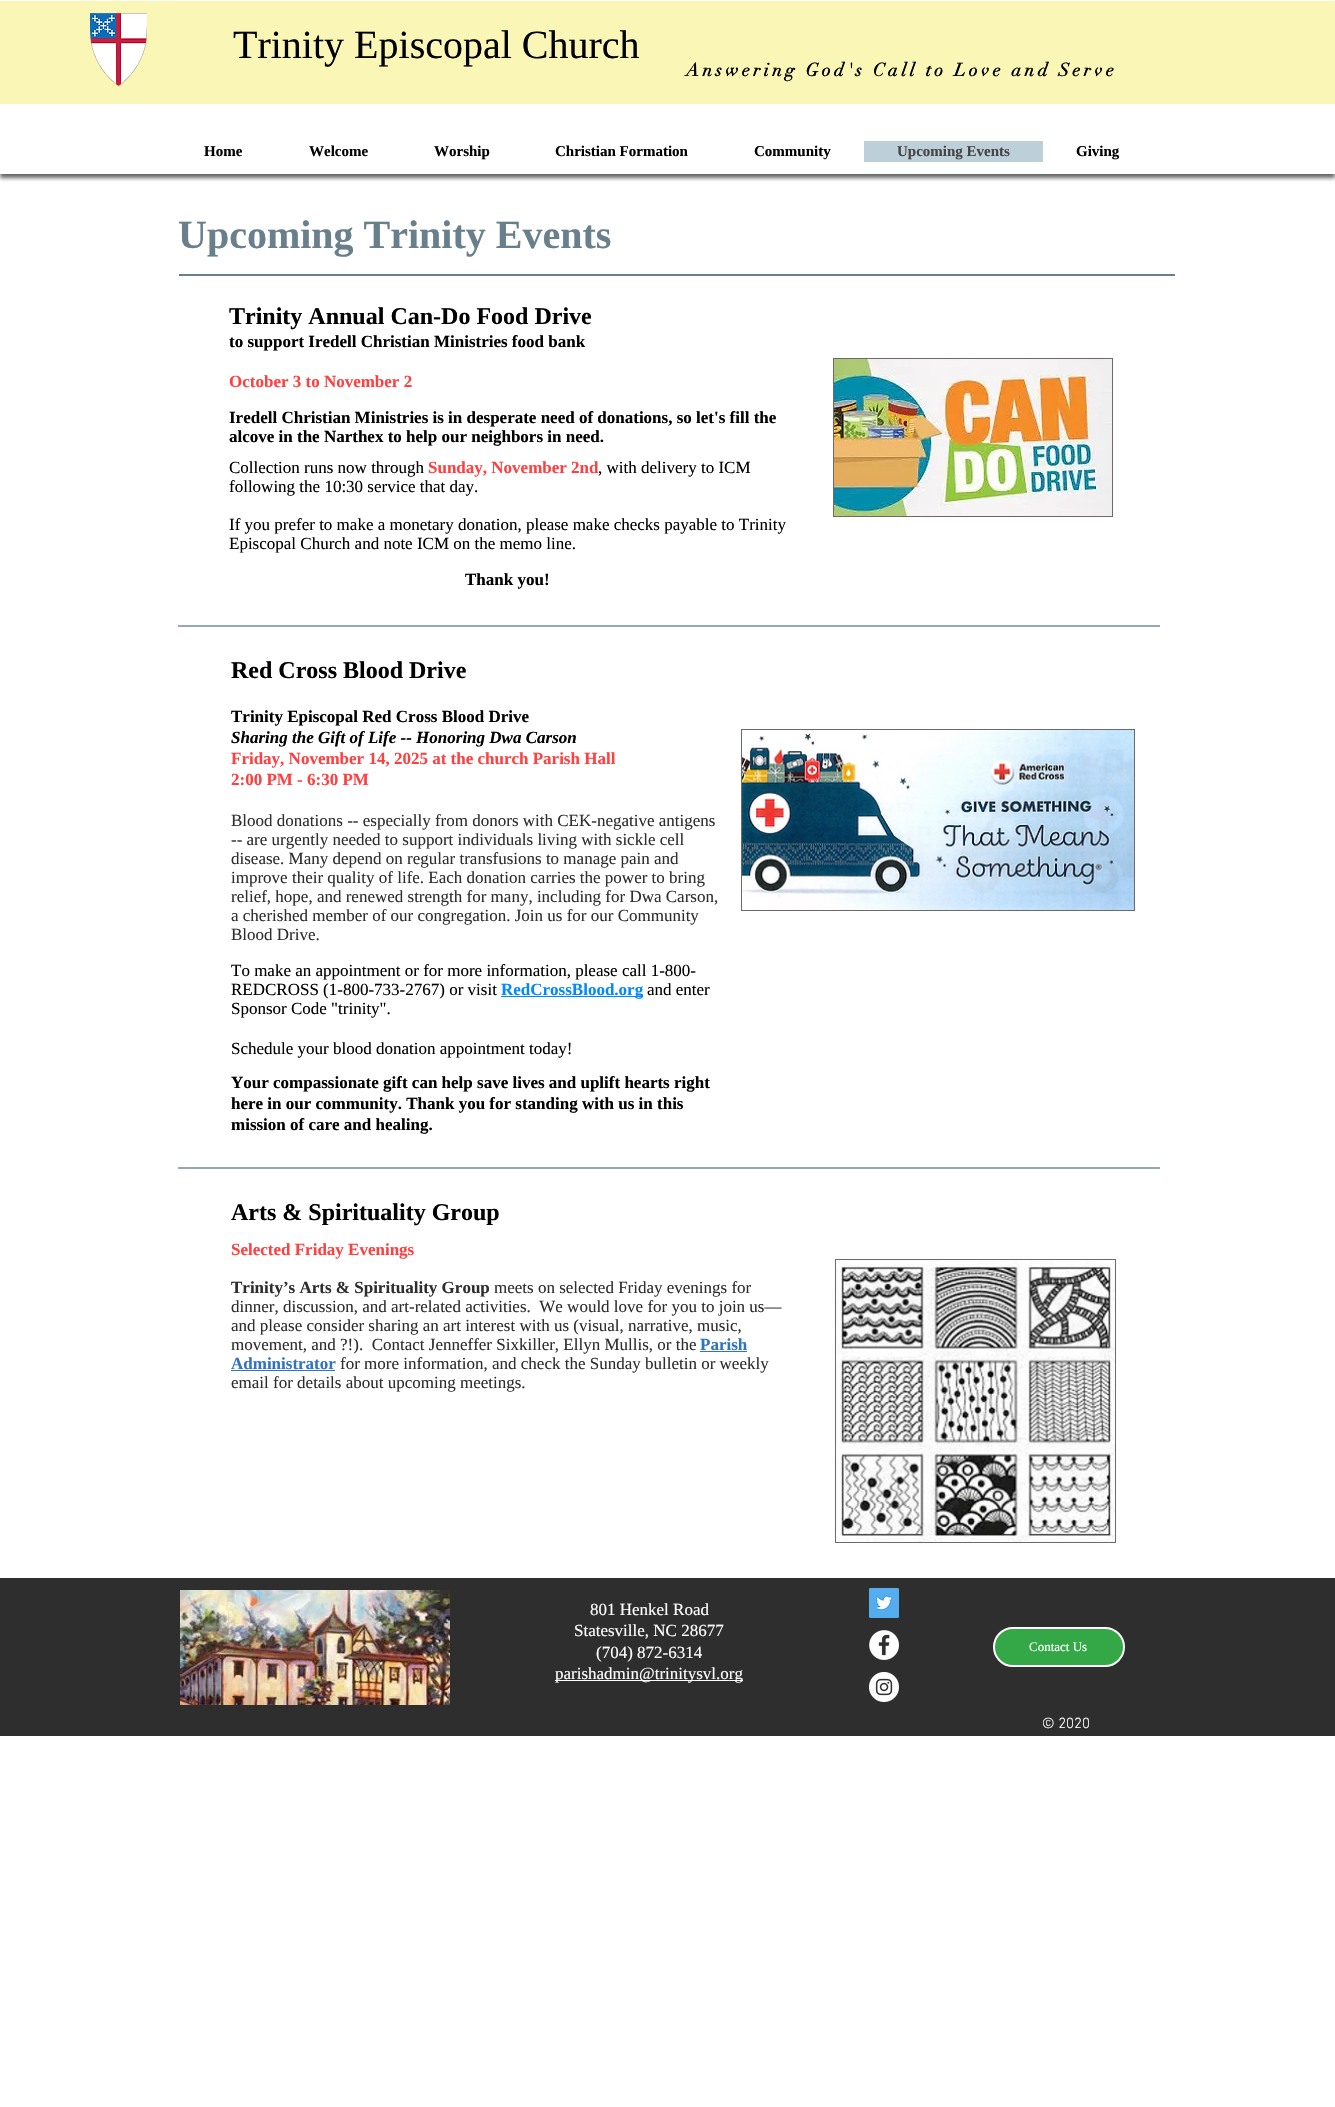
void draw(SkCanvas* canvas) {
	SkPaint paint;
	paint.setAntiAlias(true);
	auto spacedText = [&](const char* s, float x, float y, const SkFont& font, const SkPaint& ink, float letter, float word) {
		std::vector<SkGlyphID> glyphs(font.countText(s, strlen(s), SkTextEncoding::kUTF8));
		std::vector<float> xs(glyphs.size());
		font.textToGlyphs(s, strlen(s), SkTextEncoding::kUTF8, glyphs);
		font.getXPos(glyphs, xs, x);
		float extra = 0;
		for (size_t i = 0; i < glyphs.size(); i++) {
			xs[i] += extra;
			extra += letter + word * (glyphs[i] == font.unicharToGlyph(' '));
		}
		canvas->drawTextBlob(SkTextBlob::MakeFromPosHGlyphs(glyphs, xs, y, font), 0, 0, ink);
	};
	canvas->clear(0xffffffff);
	paint.setColor(0x99000000);
	paint.setMaskFilter(SkMaskFilter::MakeBlur(kNormal_SkBlurStyle, 2));
	canvas->drawRect(SkRect::MakeXYWH(0, 4, 1335, 174), paint);
	paint.setMaskFilter(nullptr);
	paint.setColor(0xffffffff);
	canvas->drawRect(SkRect::MakeXYWH(0, 0, 1335, 174), paint);
	paint.setColor(0xfff9f6b6);
	canvas->drawRect(SkRect::MakeXYWH(0, 1, 1335, 103), paint);
	SkFont f1(fontMgr->matchFamilyStyle("Liberation Serif", SkFontStyle::Normal()), 40);
	f1.setSubpixel(true);
	paint.setColor(0xff000000);
	canvas->drawString("Trinity Episcopal Church", 233, 58, f1, paint);
	canvas->drawImageRect(SkImages::DeferredFromEncodedData(SkData::MakeFromFileName("img1.png")), SkRect::MakeXYWH(90, 13, 57, 73), SkSamplingOptions());
	SkFont f2(fontMgr->matchFamilyStyle("didot", SkFontStyle::Bold()), 18);
	f2.setSubpixel(true);
	spacedText("Answering God's Call to Love and Serve", 686, 76, f2, paint, 3.4, 0);
	SkFont f3(fontMgr->matchFamilyStyle("Liberation Serif", SkFontStyle::Bold()), 15);
	f3.setSubpixel(true);
	canvas->drawString("Home", 204, 156, f3, paint);
	canvas->drawString("Welcome", 309, 156, f3, paint);
	canvas->drawString("Worship", 434, 156, f3, paint);
	canvas->drawString("Christian Formation", 555, 156, f3, paint);
	canvas->drawString("Community", 754, 156, f3, paint);
	paint.setColor(0xffbdcfd9);
	canvas->drawRect(SkRect::MakeXYWH(864, 141, 179, 21), paint);
	paint.setColor(0xff444444);
	canvas->drawString("Upcoming Events", 897, 156, f3, paint);
	paint.setColor(0xff000000);
	canvas->drawString("Giving", 1076, 156, f3, paint);
	SkFont f4(fontMgr->matchFamilyStyle("Liberation Serif", SkFontStyle::Bold()), 40);
	f4.setSubpixel(true);
	paint.setColor(0xff69808c);
	canvas->drawString("Upcoming Trinity Events", 178, 248, f4, paint);
	canvas->drawRect(SkRect::MakeXYWH(179, 274, 996, 2), paint);
	SkFont f5(fontMgr->matchFamilyStyle("Liberation Serif", SkFontStyle::Bold()), 24);
	f5.setSubpixel(true);
	paint.setColor(0xff000000);
	canvas->drawString("Trinity Annual Can-Do Food Drive", 229, 324, f5, paint);
	SkFont f6(fontMgr->matchFamilyStyle("Liberation Serif", SkFontStyle::Bold()), 17);
	f6.setSubpixel(true);
	canvas->drawString("to support Iredell Christian Ministries food bank", 229, 347, f6, paint);
	paint.setColor(0xffff4040);
	canvas->drawString("October 3 to November 2", 229, 387, f6, paint);
	paint.setColor(0xff000000);
	canvas->drawString("Iredell Christian Ministries is in desperate need of donations, so let's fill the", 229, 423, f6, paint);
	canvas->drawString("alcove in the Narthex to help our neighbors in need.", 229, 442, f6, paint);
	SkFont f7(fontMgr->matchFamilyStyle("Liberation Serif", SkFontStyle::Normal()), 17);
	f7.setSubpixel(true);
	canvas->drawString("Collection runs now through", 229, 473, f7, paint);
	paint.setColor(0xffff4040);
	canvas->drawString("Sunday, November 2nd", 428, 473, f6, paint);
	paint.setColor(0xff000000);
	canvas->drawString(", with delivery to ICM", 598, 473, f7, paint);
	canvas->drawString("following the 10:30 service that day.", 229, 492, f7, paint);
	canvas->drawString("If you prefer to make a monetary donation, please make checks payable to Trinity", 229, 530, f7, paint);
	canvas->drawString("Episcopal Church and note ICM on the memo line.", 229, 549, f7, paint);
	canvas->drawString("Thank you!", 465, 585, f6, paint);
	paint.setColor(0xff6e6968);
	canvas->drawRect(SkRect::MakeXYWH(833, 358, 280, 159), paint);
	canvas->drawImageRect(SkImages::DeferredFromEncodedData(SkData::MakeFromFileName("img2.png")), SkRect::MakeXYWH(834, 359, 278, 157), SkSamplingOptions());
	paint.setColor(0xff94a8b3);
	canvas->drawRect(SkRect::MakeXYWH(178, 625, 982, 2), paint);
	paint.setColor(0xff000000);
	canvas->drawString("Red Cross Blood Drive", 231, 678, f5, paint);
	canvas->drawString("Trinity Episcopal Red Cross Blood Drive", 231, 722, f6, paint);
	SkFont f8(fontMgr->matchFamilyStyle("Liberation Serif", SkFontStyle::BoldItalic()), 17);
	f8.setSubpixel(true);
	canvas->drawString("Sharing the Gift of Life -- Honoring Dwa Carson", 231, 743, f8, paint);
	paint.setColor(0xffff4040);
	canvas->drawString("Friday, November 14, 2025 at the church Parish Hall", 231, 764, f6, paint);
	canvas->drawString("2:00 PM - 6:30 PM", 231, 785, f6, paint);
	paint.setColor(0xff2f2e2e);
	canvas->drawString("Blood donations -- especially from donors with CEK-negative antigens", 231, 826, f7, paint);
	canvas->drawString("-- are urgently needed to support individuals living with sickle cell", 231, 845, f7, paint);
	canvas->drawString("disease. Many depend on regular transfusions to manage pain and", 231, 864, f7, paint);
	canvas->drawString("improve their quality of life. Each donation carries the power to bring", 231, 883, f7, paint);
	canvas->drawString("relief, hope, and renewed strength for many, including for Dwa Carson,", 231, 902, f7, paint);
	canvas->drawString("a cherished member of our congregation. Join us for our Community", 231, 921, f7, paint);
	canvas->drawString("Blood Drive.", 231, 940, f7, paint);
	paint.setColor(0xff000000);
	canvas->drawString("To make an appointment or for more information, please call 1-800-", 231, 976, f7, paint);
	canvas->drawString("REDCROSS (1-800-733-2767) or visit", 231, 995, f7, paint);
	paint.setColor(0xff008afc);
	canvas->drawRect(SkRect::MakeXYWH(501, 996, 142, 1), paint);
	canvas->drawString("RedCrossBlood.org", 501, 995, f6, paint);
	paint.setColor(0xff000000);
	canvas->drawString("and enter", 647, 995, f7, paint);
	canvas->drawString("Sponsor Code \"trinity\".", 231, 1014, f7, paint);
	canvas->drawString("Schedule your blood donation appointment today!", 231, 1054, f7, paint);
	canvas->drawString("Your compassionate gift can help save lives and uplift hearts right", 231, 1088, f6, paint);
	canvas->drawString("here in our community. Thank you for standing with us in this", 231, 1109, f6, paint);
	canvas->drawString("mission of care and healing.", 231, 1130, f6, paint);
	paint.setColor(0xff6e6968);
	canvas->drawRect(SkRect::MakeXYWH(741, 729, 394, 182), paint);
	canvas->drawImageRect(SkImages::DeferredFromEncodedData(SkData::MakeFromFileName("img3.png")), SkRect::MakeXYWH(742, 730, 392, 180), SkSamplingOptions());
	paint.setColor(0xff94a8b3);
	canvas->drawRect(SkRect::MakeXYWH(178, 1167, 982, 2), paint);
	paint.setColor(0xff000000);
	canvas->drawString("Arts & Spirituality Group", 231, 1220, f5, paint);
	paint.setColor(0xffff4040);
	canvas->drawString("Selected Friday Evenings", 231, 1255, f6, paint);
	paint.setColor(0xff2f2e2e);
	canvas->drawString("Trinity’s Arts & Spirituality Group", 231, 1293, f6, paint);
	canvas->drawString("meets on selected Friday evenings for", 494, 1293, f7, paint);
	canvas->drawString("dinner, discussion, and art-related activities.  We would love for you to join us—", 231, 1312, f7, paint);
	canvas->drawString("and please consider sharing an art interest with us (visual, narrative, music,", 231, 1331, f7, paint);
	canvas->drawString("movement, and ?!).  Contact Jenneffer Sixkiller, Ellyn Mullis, or the", 231, 1350, f7, paint);
	paint.setColor(0xff2f73c2);
	canvas->drawString("Parish", 700, 1350, f6, paint);
	canvas->drawRect(SkRect::MakeXYWH(700, 1351, 47, 1), paint);
	canvas->drawString("Administrator", 231, 1369, f6, paint);
	canvas->drawRect(SkRect::MakeXYWH(231, 1370, 104, 1), paint);
	paint.setColor(0xff2f2e2e);
	canvas->drawString("for more information, and check the Sunday bulletin or weekly", 340, 1369, f7, paint);
	canvas->drawString("email for details about upcoming meetings.", 231, 1388, f7, paint);
	paint.setColor(0xff6e6968);
	canvas->drawRect(SkRect::MakeXYWH(835, 1259, 281, 284), paint);
	canvas->drawImageRect(SkImages::DeferredFromEncodedData(SkData::MakeFromFileName("img4.png")), SkRect::MakeXYWH(836, 1260, 279, 282), SkSamplingOptions());
	paint.setColor(0xff2f2e2e);
	canvas->drawRect(SkRect::MakeXYWH(0, 1578, 1335, 158), paint);
	canvas->drawImageRect(SkImages::DeferredFromEncodedData(SkData::MakeFromFileName("img5.png")), SkRect::MakeXYWH(180, 1590, 270, 115), SkSamplingOptions());
	paint.setColor(0xffffffff);
	canvas->drawString("801 Henkel Road", 590, 1615, f7, paint);
	canvas->drawString("Statesville, NC 28677", 574, 1636, f7, paint);
	canvas->drawString("(704) 872-6314", 596, 1658, f7, paint);
	canvas->drawRect(SkRect::MakeXYWH(555, 1680, 188, 1), paint);
	canvas->drawString("parishadmin@trinitysvl.org", 555, 1679, f7, paint);
	canvas->drawImageRect(SkImages::DeferredFromEncodedData(SkData::MakeFromFileName("img6.png")), SkRect::MakeXYWH(869, 1588, 30, 30), SkSamplingOptions());
	canvas->drawImageRect(SkImages::DeferredFromEncodedData(SkData::MakeFromFileName("img7.png")), SkRect::MakeXYWH(869, 1630, 30, 30), SkSamplingOptions());
	canvas->drawImageRect(SkImages::DeferredFromEncodedData(SkData::MakeFromFileName("img8.png")), SkRect::MakeXYWH(869, 1672, 30, 30), SkSamplingOptions());
	paint.setColor(0xff34a846);
	canvas->drawRoundRect(SkRect::MakeXYWH(994, 1628, 130, 38), 19, 19, paint);
	paint.setStroke(true);
	paint.setStrokeWidth(2);
	paint.setColor(0xffffffff);
	canvas->drawRoundRect(SkRect::MakeXYWH(994, 1628, 130, 38), 19, 19, paint);
	SkFont f9(fontMgr->matchFamilyStyle("Liberation Serif", SkFontStyle::Normal()), 13);
	f9.setSubpixel(true);
	paint.setStroke(false);
	canvas->drawString("Contact Us", 1029, 1651, f9, paint);
	SkFont f10(fontMgr->matchFamilyStyle("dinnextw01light", SkFontStyle(300, SkFontStyle::kNormal_Width, SkFontStyle::kUpright_Slant)), 15);
	f10.setSubpixel(true);
	canvas->drawString("© 2020", 1042, 1728, f10, paint);
}
